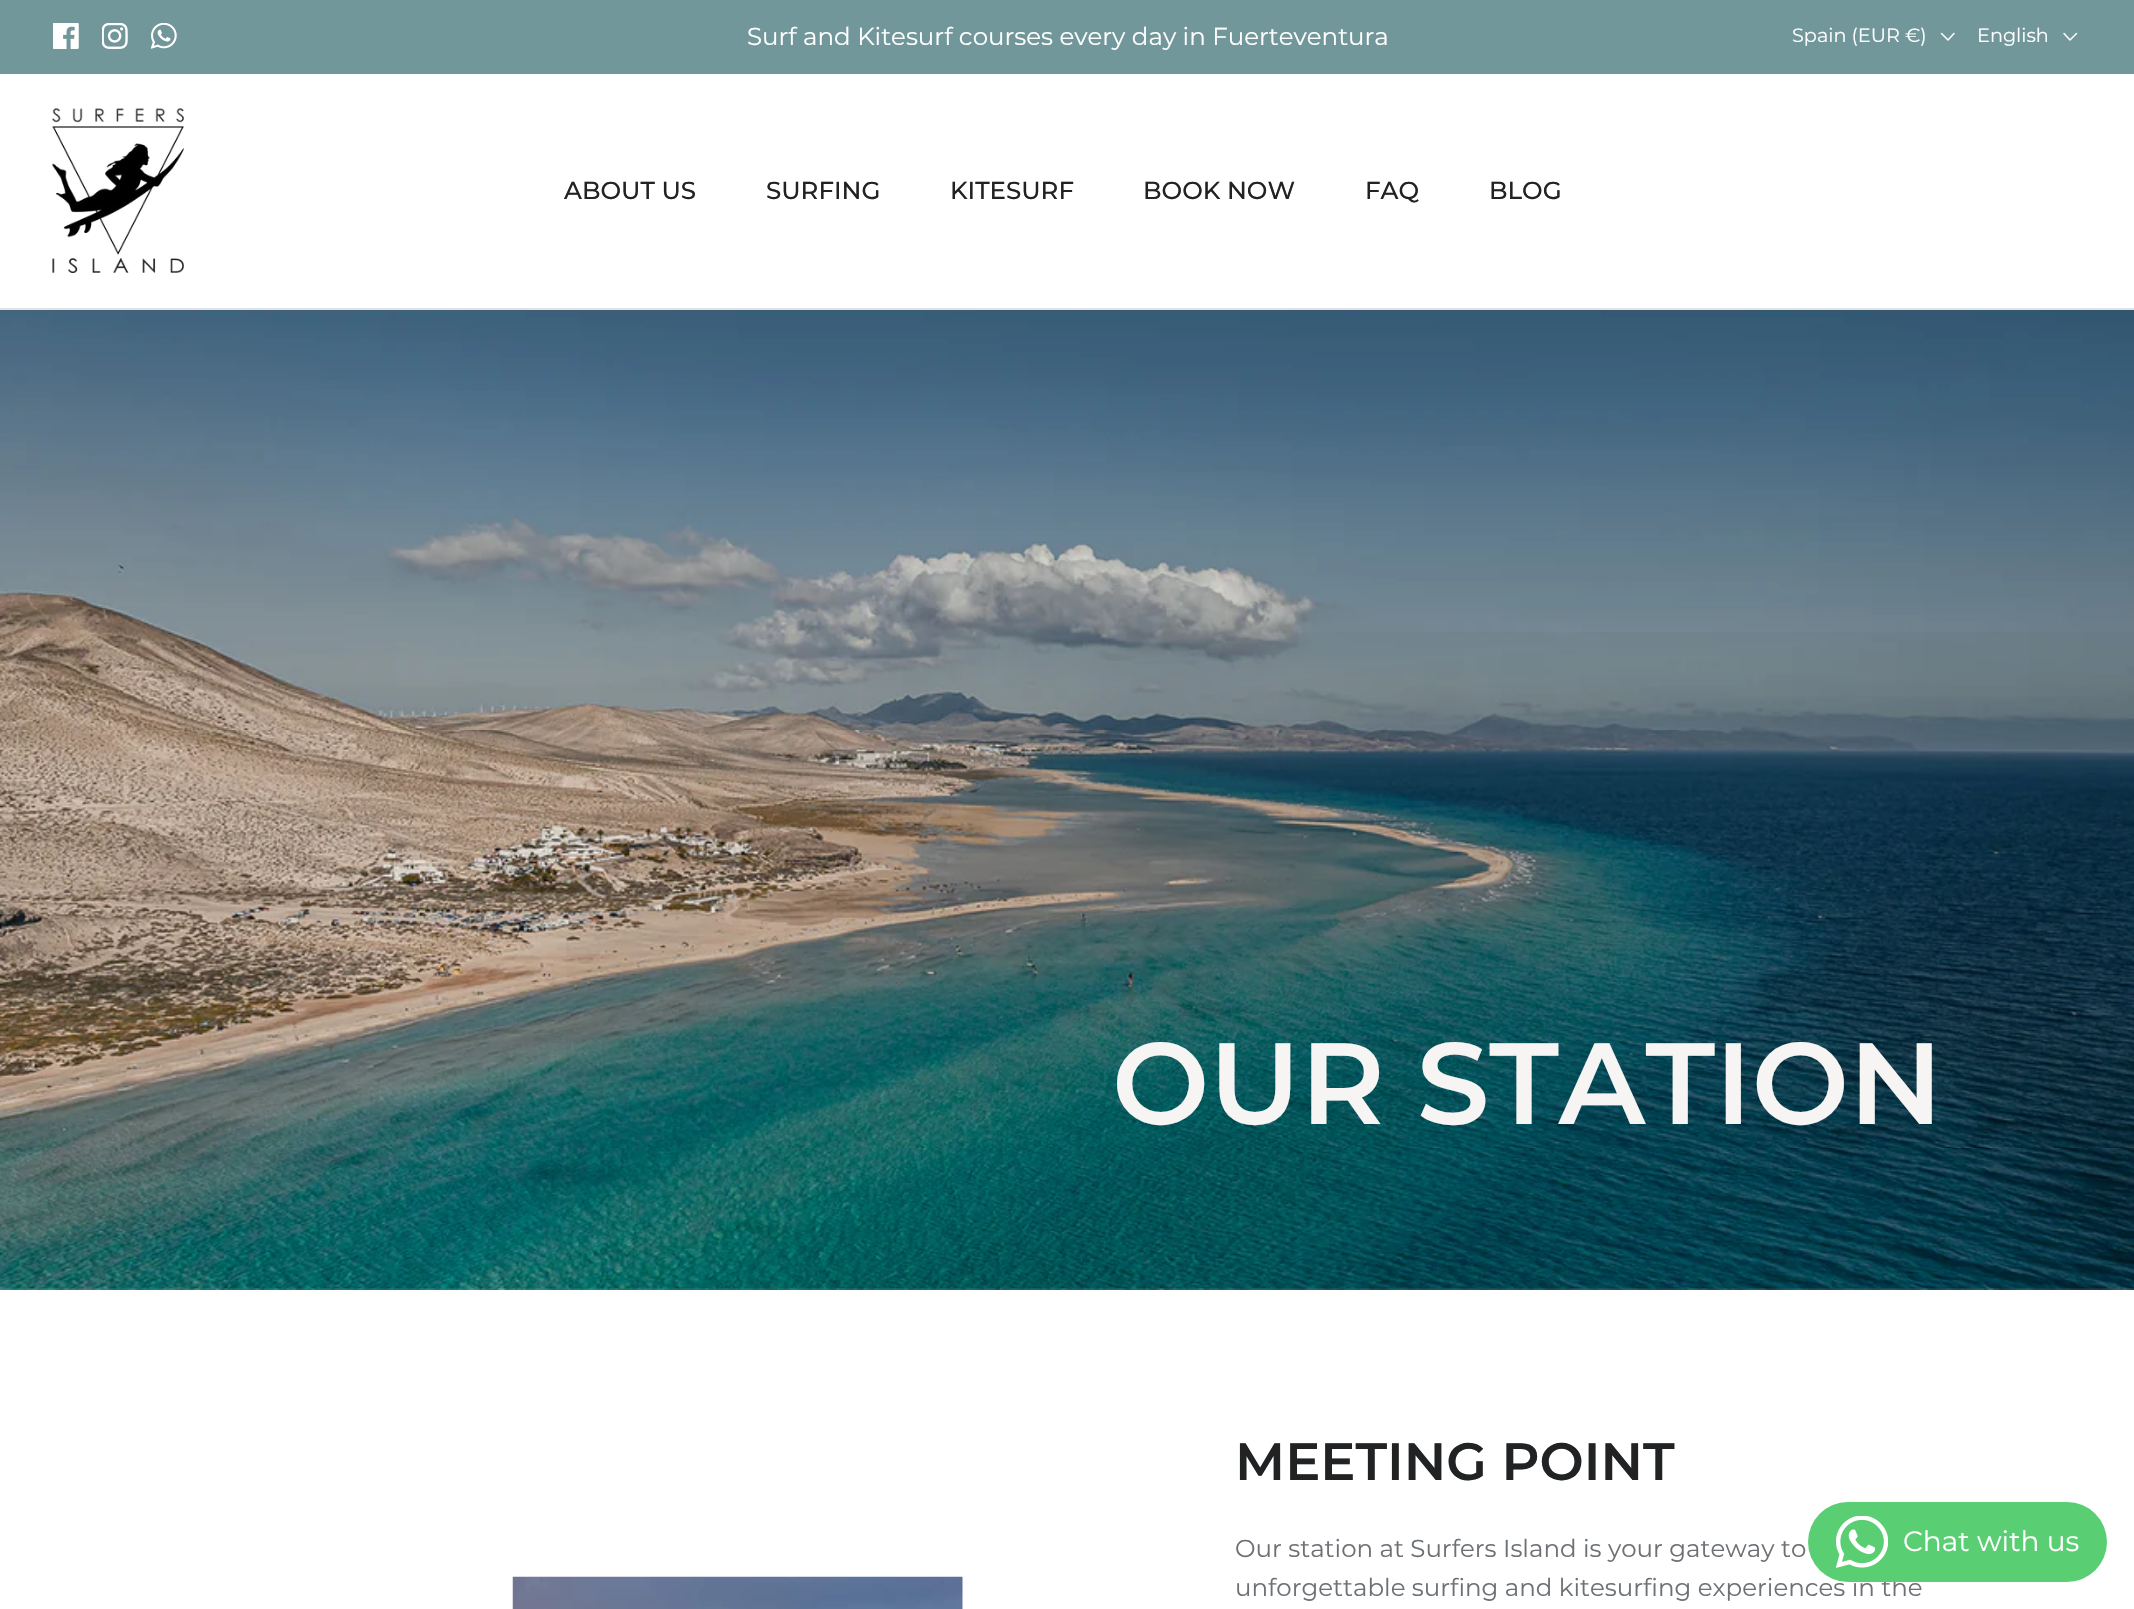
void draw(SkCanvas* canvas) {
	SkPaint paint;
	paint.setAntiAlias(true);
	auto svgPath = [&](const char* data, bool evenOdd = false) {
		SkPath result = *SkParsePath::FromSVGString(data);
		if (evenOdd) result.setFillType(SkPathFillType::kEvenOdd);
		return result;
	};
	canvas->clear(0xffffffff);
	paint.setColor(0xff72979a);
	canvas->drawRect(SkRect::MakeXYWH(0, 0, 2134, 74), paint);
	canvas->drawImageRect(SkImages::DeferredFromEncodedData(SkData::MakeFromFileName("img1.png")), SkRect::MakeXYWH(53, 23, 26, 26), SkSamplingOptions());
	canvas->drawImageRect(SkImages::DeferredFromEncodedData(SkData::MakeFromFileName("img2.png")), SkRect::MakeXYWH(102, 23, 26, 26), SkSamplingOptions());
	canvas->drawImageRect(SkImages::DeferredFromEncodedData(SkData::MakeFromFileName("img3.png")), SkRect::MakeXYWH(151, 23, 26, 26), SkSamplingOptions());
	SkFont f1(fontMgr->matchFamilyStyle("Montserrat", SkFontStyle::Normal()), 24.5);
	f1.setSubpixel(true);
	paint.setColor(0xffffffff);
	canvas->drawString("Surf and Kitesurf courses every day in Fuerteventura", 747, 45, f1, paint);
	SkFont f2(fontMgr->matchFamilyStyle("Montserrat", SkFontStyle::Normal()), 19.25);
	f2.setSubpixel(true);
	canvas->drawString("Spain (EUR €)", 1792, 42, f2, paint);
	paint.setStroke(true);
	paint.setStrokeWidth(1.5);
	paint.setStrokeCap(SkPaint::kRound_Cap);
	paint.setStrokeJoin(SkPaint::kRound_Join);
	canvas->drawPath(svgPath("M1941.5 33.5L1948 40L1954 33.5"), paint);
	paint.setStroke(false);
	canvas->drawString("English", 1977, 42, f2, paint);
	paint.setStroke(true);
	canvas->drawPath(svgPath("M2064 33.5L2070 40L2076.5 33.5"), paint);
	paint.setStroke(false);
	paint.setColor(0xffe2e2e2);
	canvas->drawRect(SkRect::MakeXYWH(0, 308, 2134, 2), paint);
	canvas->drawImageRect(SkImages::DeferredFromEncodedData(SkData::MakeFromFileName("img4.png")), SkRect::MakeXYWH(52, 108, 132, 165), SkSamplingOptions());
	SkFont f3(fontMgr->matchFamilyStyle("Montserrat", SkFontStyle(500, SkFontStyle::kNormal_Width, SkFontStyle::kUpright_Slant)), 24.5);
	f3.setSubpixel(true);
	paint.setColor(0xff202223);
	canvas->drawString("ABOUT US", 564, 199, f3, paint);
	canvas->drawString("SURFING", 766, 199, f3, paint);
	canvas->drawString("KITESURF", 950, 199, f3, paint);
	canvas->drawString("BOOK NOW", 1143, 199, f3, paint);
	canvas->drawString("FAQ", 1365, 199, f3, paint);
	canvas->drawString("BLOG", 1489, 199, f3, paint);
	canvas->drawImageRect(SkImages::DeferredFromEncodedData(SkData::MakeFromFileName("img5.png")), SkRect::MakeXYWH(0, 310, 2134, 980), SkSamplingOptions());
	{
		const SkColor colors[] = {0x26000000, 0x00000000};
		const float stops[] = {0, 0.7};
		SkMatrix m = SkMatrix::Translate(1716, 1094).preScale(1904, 772);
		paint.setShader(SkGradientShader::MakeRadial({0, 0}, 1, colors, stops, 2, SkTileMode::kClamp, 0, &m));
		paint.setAlpha(255);
	}
	canvas->drawRect(SkRect::MakeXYWH(566, 632, 1568, 658), paint);
	SkFont f4(fontMgr->matchFamilyStyle("Montserrat", SkFontStyle(600, SkFontStyle::kNormal_Width, SkFontStyle::kUpright_Slant)), 115.5);
	f4.setSubpixel(true);
	paint.setShader(nullptr);
	paint.setColor(0xfff6f5f3);
	canvas->drawString("OUR STATION", 1112, 1124, f4, paint);
	canvas->drawImageRect(SkImages::DeferredFromEncodedData(SkData::MakeFromFileName("img6.png")), SkRect::MakeXYWH(512, 1576, 451, 33), SkSamplingOptions());
	SkFont f5(fontMgr->matchFamilyStyle("Montserrat", SkFontStyle(600, SkFontStyle::kNormal_Width, SkFontStyle::kUpright_Slant)), 52.5);
	f5.setSubpixel(true);
	paint.setColor(0xff202223);
	canvas->drawString("MEETING POINT", 1235, 1480, f5, paint);
	paint.setColor(0xff6d7175);
	canvas->drawString("Our station at Surfers Island is your gateway to", 1235, 1557, f1, paint);
	canvas->drawString("unforgettable surfing and kitesurfing experiences in the", 1235, 1596, f1, paint);
	paint.setColor(0xff59ce72);
	canvas->drawRoundRect(SkRect::MakeXYWH(1808, 1502, 299, 80), 40, 40, paint);
	canvas->drawImageRect(SkImages::DeferredFromEncodedData(SkData::MakeFromFileName("img7.png")), SkRect::MakeXYWH(1836, 1516, 52, 52), SkSamplingOptions());
	SkFont f6(fontMgr->matchFamilyStyle("Montserrat", SkFontStyle::Normal()), 28);
	f6.setSubpixel(true);
	paint.setColor(0xffffffff);
	canvas->drawString("Chat with us", 1903, 1551, f6, paint);
}
